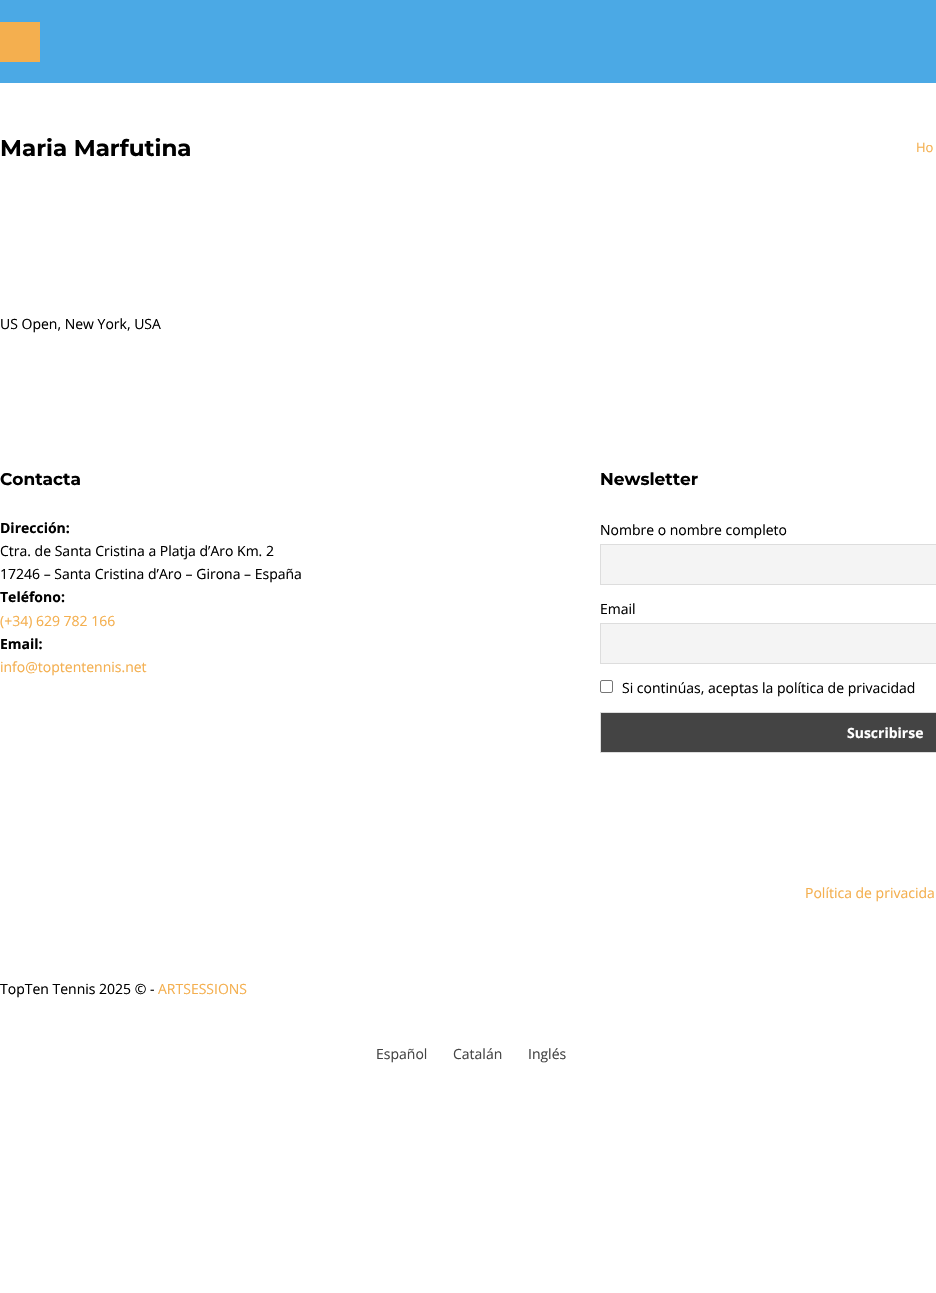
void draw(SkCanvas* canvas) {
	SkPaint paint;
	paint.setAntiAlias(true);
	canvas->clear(0xffffffff);
	paint.setColor(0xff4ba9e5);
	canvas->drawRect(SkRect::MakeXYWH(0, 0, 936, 83), paint);
	paint.setColor(0xfff4af4f);
	canvas->drawRect(SkRect::MakeXYWH(0, 22, 40, 40), paint);
	SkFont f1(fontMgr->matchFamilyStyle("Montserrat", SkFontStyle::Bold()), 23);
	f1.setSubpixel(true);
	paint.setColor(0xff000000);
	canvas->drawString("Maria Marfutina", 0, 156, f1, paint);
	SkFont f2(fontMgr->matchFamilyStyle("Open Sans", SkFontStyle::Normal()), 13);
	f2.setSubpixel(true);
	paint.setColor(0xfff4af4f);
	canvas->drawString("Ho", 916, 152, f2, paint);
	SkFont f3(fontMgr->matchFamilyStyle("Open Sans", SkFontStyle::Normal()), 14);
	f3.setSubpixel(true);
	paint.setColor(0xff000000);
	canvas->drawString("US Open, New York, USA", 0, 329, f3, paint);
	SkFont f4(fontMgr->matchFamilyStyle("Montserrat", SkFontStyle::Bold()), 17);
	f4.setSubpixel(true);
	canvas->drawString("Contacta", 0, 485, f4, paint);
	SkFont f5(fontMgr->matchFamilyStyle("Open Sans", SkFontStyle::Bold()), 14);
	f5.setSubpixel(true);
	canvas->drawString("Dirección:", 0, 533, f5, paint);
	canvas->drawString("Ctra. de Santa Cristina a Platja d’Aro Km. 2", 0, 556, f3, paint);
	canvas->drawString("17246 – Santa Cristina d’Aro – Girona – España", 0, 579, f3, paint);
	canvas->drawString("Teléfono:", 0, 602, f5, paint);
	paint.setColor(0xfff4af4f);
	canvas->drawString("(+34) 629 782 166", 0, 626, f3, paint);
	paint.setColor(0xff000000);
	canvas->drawString("Email:", 0, 649, f5, paint);
	paint.setColor(0xfff4af4f);
	canvas->drawString("info@toptentennis.net", 0, 672, f3, paint);
	paint.setColor(0xff000000);
	canvas->drawString("Newsletter", 600, 485, f4, paint);
	canvas->drawString("Nombre o nombre completo", 600, 535, f3, paint);
	paint.setColor(0xfff4f4f4);
	canvas->drawRect(SkRect::MakeXYWH(600.5, 544.5, 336, 40), paint);
	paint.setStroke(true);
	paint.setStrokeWidth(1);
	paint.setColor(0xffdddddd);
	canvas->drawRect(SkRect::MakeXYWH(600.5, 544.5, 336, 40), paint);
	paint.setStroke(false);
	paint.setColor(0xff000000);
	canvas->drawString("Email", 600, 614, f3, paint);
	paint.setColor(0xfff4f4f4);
	canvas->drawRect(SkRect::MakeXYWH(600.5, 623.5, 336, 40), paint);
	paint.setStroke(true);
	paint.setColor(0xffdddddd);
	canvas->drawRect(SkRect::MakeXYWH(600.5, 623.5, 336, 40), paint);
	paint.setColor(0xff767676);
	canvas->drawRoundRect(SkRect::MakeXYWH(600.5, 680.5, 12, 12), 1.5, 1.5, paint);
	paint.setStroke(false);
	paint.setColor(0xff000000);
	canvas->drawString("Si continúas, aceptas la política de privacidad", 622, 693, f3, paint);
	paint.setColor(0xff444444);
	canvas->drawRect(SkRect::MakeXYWH(600.5, 712.5, 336, 40), paint);
	paint.setStroke(true);
	paint.setColor(0xffdddddd);
	canvas->drawRect(SkRect::MakeXYWH(600.5, 712.5, 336, 40), paint);
	paint.setStroke(false);
	paint.setColor(0xffffffff);
	canvas->drawString("Suscribirse", 847, 738, f5, paint);
	paint.setColor(0xfff4af4f);
	canvas->drawString("Política de privacida", 805, 898, f3, paint);
	paint.setColor(0xff000000);
	canvas->drawString("TopTen Tennis 2025 © -", 0, 994, f3, paint);
	paint.setColor(0xfff4af4f);
	canvas->drawString("ARTSESSIONS", 158, 994, f3, paint);
	paint.setColor(0xff444444);
	canvas->drawString("Español", 376, 1059, f3, paint);
	canvas->drawString("Catalán", 453, 1059, f3, paint);
	canvas->drawString("Inglés", 528, 1059, f3, paint);
}
